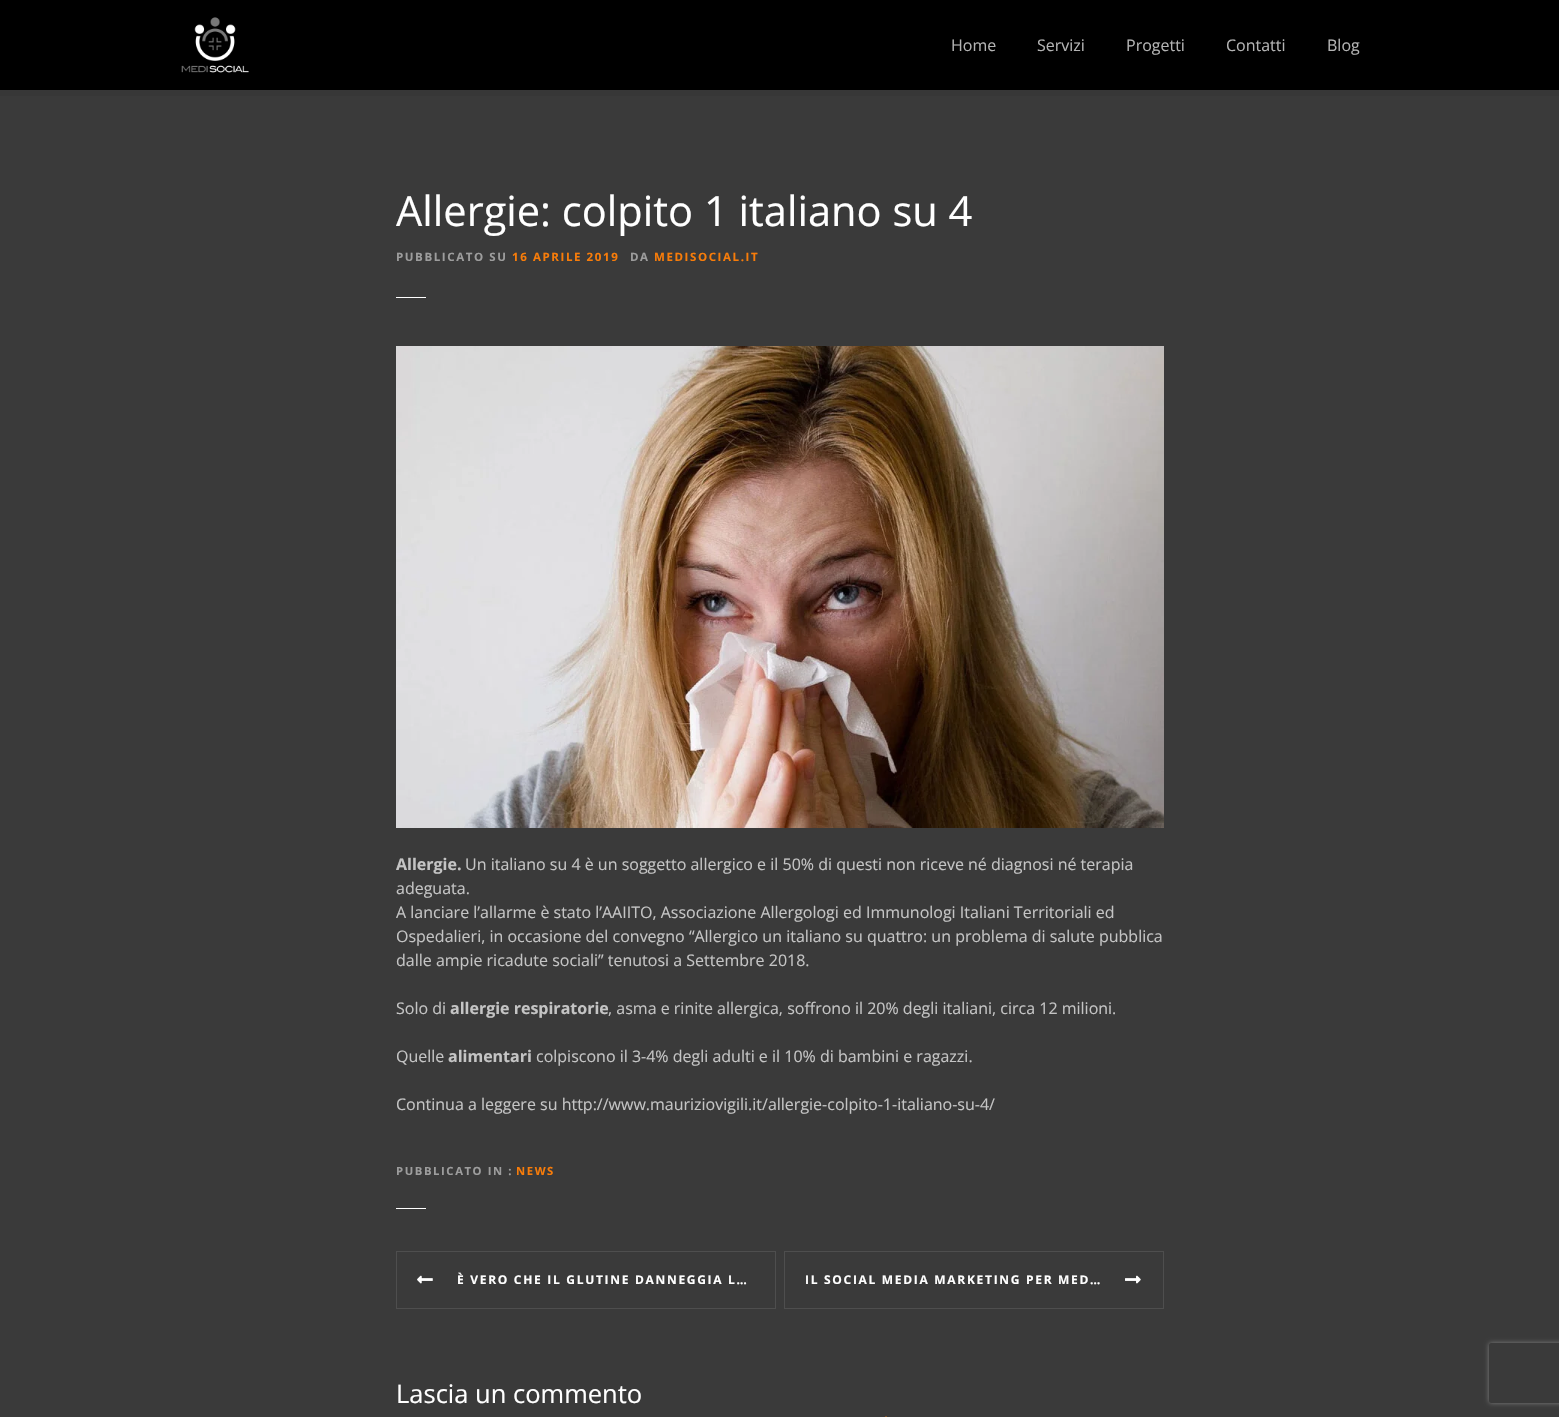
void draw(SkCanvas* canvas) {
	SkPaint paint;
	paint.setAntiAlias(true);
	auto spacedText = [&](const char* s, float x, float y, const SkFont& font, const SkPaint& ink, float letter, float word) {
		std::vector<SkGlyphID> glyphs(font.countText(s, strlen(s), SkTextEncoding::kUTF8));
		std::vector<float> xs(glyphs.size());
		font.textToGlyphs(s, strlen(s), SkTextEncoding::kUTF8, glyphs);
		font.getXPos(glyphs, xs, x);
		float extra = 0;
		for (size_t i = 0; i < glyphs.size(); i++) {
			xs[i] += extra;
			extra += letter + word * (glyphs[i] == font.unicharToGlyph(' '));
		}
		canvas->drawTextBlob(SkTextBlob::MakeFromPosHGlyphs(glyphs, xs, y, font), 0, 0, ink);
	};
	auto svgPath = [&](const char* data, bool evenOdd = false) {
		SkPath result = *SkParsePath::FromSVGString(data);
		if (evenOdd) result.setFillType(SkPathFillType::kEvenOdd);
		return result;
	};
	canvas->clear(0xff3a3a3a);
	paint.setColor(0xff000000);
	canvas->drawRect(SkRect::MakeXYWH(0, 0, 1559, 90), paint);
	canvas->drawImageRect(SkImages::DeferredFromEncodedData(SkData::MakeFromFileName("img1.png")), SkRect::MakeXYWH(181, 17, 68, 56), SkSamplingOptions());
	SkFont f1(fontMgr->matchFamilyStyle("Open Sans", SkFontStyle::Normal()), 16);
	f1.setSubpixel(true);
	paint.setColor(0xffb3b3b3);
	canvas->drawString("Home", 951, 51, f1, paint);
	canvas->drawString("Servizi", 1037, 51, f1, paint);
	canvas->drawString("Progetti", 1126, 51, f1, paint);
	canvas->drawString("Contatti", 1226, 51, f1, paint);
	canvas->drawString("Blog", 1327, 51, f1, paint);
	paint.setColor(0xff373737);
	canvas->drawRect(SkRect::MakeXYWH(0, 90, 1559, 6), paint);
	SkFont f2(fontMgr->matchFamilyStyle("Open Sans", SkFontStyle::Normal()), 41.6);
	f2.setSubpixel(true);
	paint.setColor(0xffffffff);
	canvas->drawString("Allergie: colpito 1 italiano su 4", 396, 226, f2, paint);
	SkFont f3(fontMgr->matchFamilyStyle("Open Sans", SkFontStyle::Bold()), 11.5);
	f3.setSubpixel(true);
	paint.setColor(0xff9d9d9d);
	spacedText("PUBBLICATO SU", 396, 261, f3, paint, 1.6, 0);
	paint.setColor(0xfff87c09);
	spacedText("16 APRILE 2019", 512, 261, f3, paint, 1.6, 0);
	paint.setColor(0xff9d9d9d);
	spacedText("DA", 630, 261, f3, paint, 1.6, 0);
	paint.setColor(0xfff87c09);
	spacedText("MEDISOCIAL.IT", 654, 261, f3, paint, 1.6, 0);
	paint.setColor(0xffffffff);
	canvas->drawRect(SkRect::MakeXYWH(396, 297, 30, 1), paint);
	canvas->drawImageRect(SkImages::DeferredFromEncodedData(SkData::MakeFromFileName("img2.png")), SkRect::MakeXYWH(396, 346, 768, 482), SkSamplingOptions());
	SkFont f4(fontMgr->matchFamilyStyle("Open Sans", SkFontStyle::Bold()), 16);
	f4.setSubpixel(true);
	paint.setColor(0xffc4c4c4);
	canvas->drawString("Allergie.", 396, 870, f4, paint);
	canvas->drawString("Un italiano su 4 è un soggetto allergico e il 50% di questi non riceve né diagnosi né terapia", 465, 870, f1, paint);
	canvas->drawString("adeguata.", 396, 894, f1, paint);
	canvas->drawString("A lanciare l’allarme è stato l’AAIITO, Associazione Allergologi ed Immunologi Italiani Territoriali ed", 396, 918, f1, paint);
	canvas->drawString("Ospedalieri, in occasione del convegno “Allergico un italiano su quattro: un problema di salute pubblica", 396, 942, f1, paint);
	canvas->drawString("dalle ampie ricadute sociali” tenutosi a Settembre 2018.", 396, 966, f1, paint);
	canvas->drawString("Solo di", 396, 1014, f1, paint);
	canvas->drawString("allergie respiratorie", 450, 1014, f4, paint);
	canvas->drawString(", asma e rinite allergica, soffrono il 20% degli italiani, circa 12 milioni.", 608, 1014, f1, paint);
	canvas->drawString("Quelle", 396, 1062, f1, paint);
	canvas->drawString("alimentari", 448, 1062, f4, paint);
	canvas->drawString("colpiscono il 3-4% degli adulti e il 10% di bambini e ragazzi.", 536, 1062, f1, paint);
	canvas->drawString("Continua a leggere su http://www.mauriziovigili.it/allergie-colpito-1-italiano-su-4/", 396, 1110, f1, paint);
	SkFont f5(fontMgr->matchFamilyStyle("Open Sans", SkFontStyle::Bold()), 11.25);
	f5.setSubpixel(true);
	paint.setColor(0xff9d9d9d);
	spacedText("PUBBLICATO IN :", 396, 1175, f5, paint, 1.6, 0);
	paint.setColor(0xfff87c09);
	spacedText("NEWS", 516, 1175, f5, paint, 1.6, 0);
	paint.setColor(0xffffffff);
	canvas->drawRect(SkRect::MakeXYWH(396, 1208, 30, 1), paint);
	paint.setStroke(true);
	paint.setStrokeWidth(1);
	paint.setColor(0xff4e4e4e);
	canvas->drawRect(SkRect::MakeXYWH(396.5, 1251.5, 379, 57), paint);
	canvas->drawImageRect(SkImages::DeferredFromEncodedData(SkData::MakeFromFileName("img3.png")), SkRect::MakeXYWH(417, 1275, 16, 9), SkSamplingOptions());
	SkFont f6(fontMgr->matchFamilyStyle("Open Sans", SkFontStyle::Bold()), 12);
	f6.setSubpixel(true);
	paint.setStroke(false);
	paint.setColor(0xffffffff);
	spacedText("È VERO CHE IL GLUTINE DANNEGGIA L…", 457, 1284, f6, paint, 1.7, 0);
	paint.setStroke(true);
	paint.setColor(0xff4e4e4e);
	canvas->drawRect(SkRect::MakeXYWH(784.5, 1251.5, 379, 57), paint);
	paint.setStroke(false);
	paint.setColor(0xffffffff);
	spacedText("IL SOCIAL MEDIA MARKETING PER MED…", 805, 1284, f6, paint, 1.7, 0);
	canvas->drawImageRect(SkImages::DeferredFromEncodedData(SkData::MakeFromFileName("img4.png")), SkRect::MakeXYWH(1125, 1275, 16, 9), SkSamplingOptions());
	SkFont f7(fontMgr->matchFamilyStyle("Open Sans", SkFontStyle::Normal()), 25.5);
	f7.setSubpixel(true);
	canvas->drawString("Lascia un commento", 396, 1403, f7, paint);
	canvas->drawImageRect(SkImages::DeferredFromEncodedData(SkData::MakeFromFileName("img5.png")), SkRect::MakeXYWH(885, 1416, 2, 1), SkSamplingOptions());
	canvas->save();
	canvas->clipPath(svgPath("M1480 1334H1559V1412H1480ZM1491 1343H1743C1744 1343 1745 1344 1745 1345V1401C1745 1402 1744 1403 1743 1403H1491C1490 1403 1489 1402 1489 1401V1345C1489 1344 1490 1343 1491 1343Z", true), true);
	paint.setColor(0xff808080);
	paint.setMaskFilter(SkMaskFilter::MakeBlur(kNormal_SkBlurStyle, 2.5));
	canvas->drawRoundRect(SkRect::MakeXYWH(1489, 1343, 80, 60), 2, 2, paint);
	paint.setMaskFilter(nullptr);
	canvas->restore();
}
